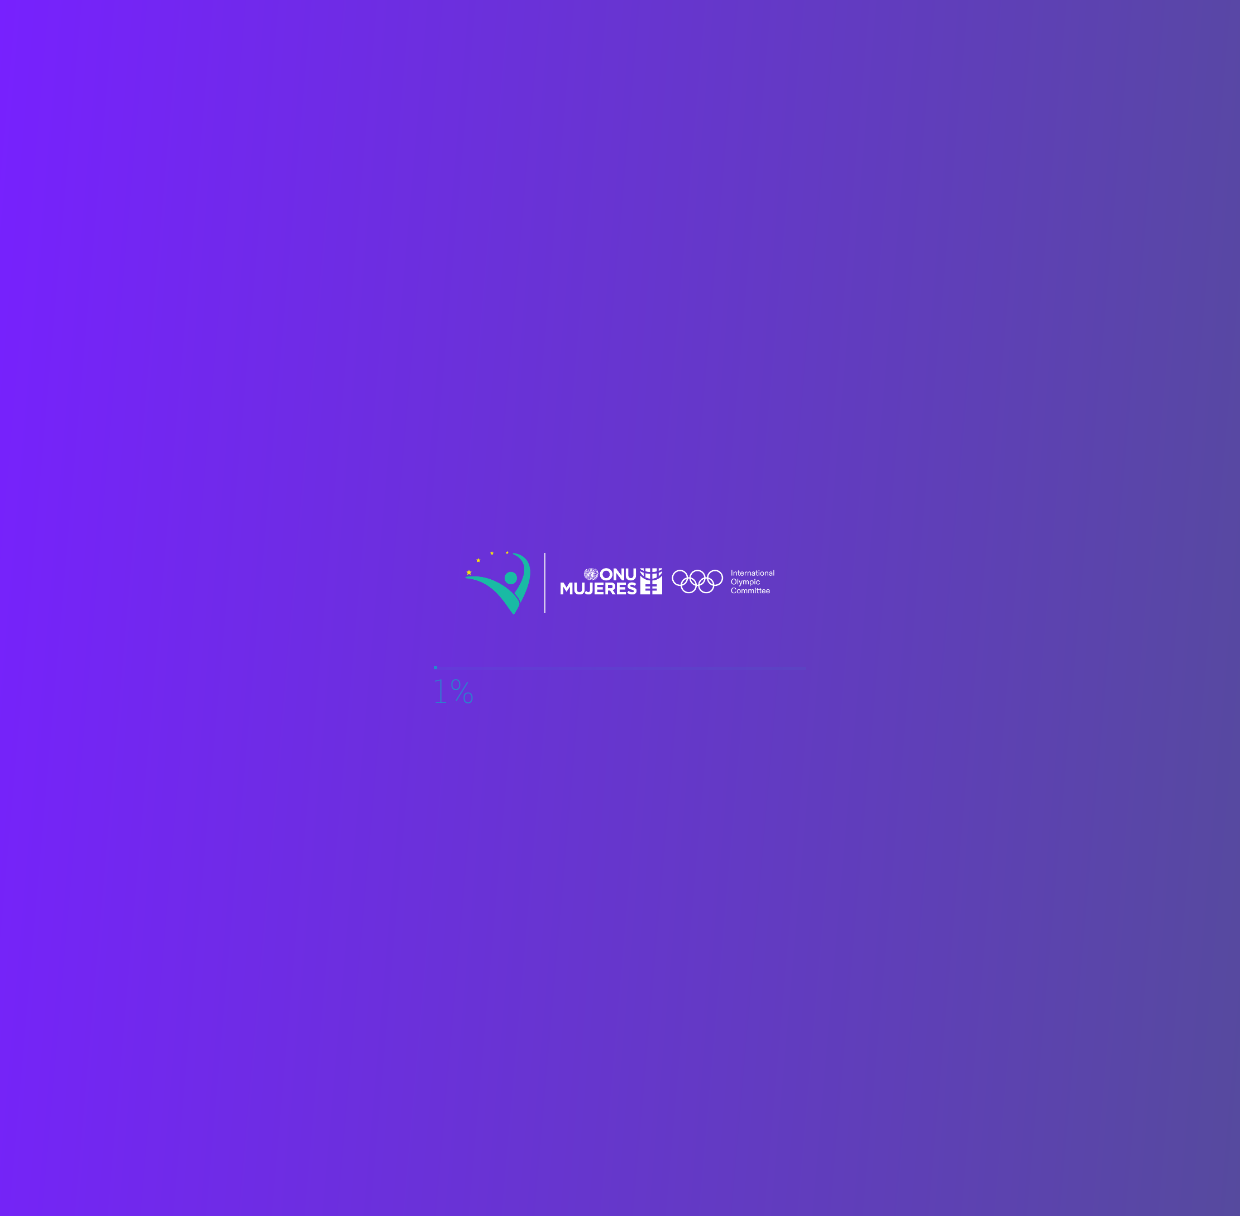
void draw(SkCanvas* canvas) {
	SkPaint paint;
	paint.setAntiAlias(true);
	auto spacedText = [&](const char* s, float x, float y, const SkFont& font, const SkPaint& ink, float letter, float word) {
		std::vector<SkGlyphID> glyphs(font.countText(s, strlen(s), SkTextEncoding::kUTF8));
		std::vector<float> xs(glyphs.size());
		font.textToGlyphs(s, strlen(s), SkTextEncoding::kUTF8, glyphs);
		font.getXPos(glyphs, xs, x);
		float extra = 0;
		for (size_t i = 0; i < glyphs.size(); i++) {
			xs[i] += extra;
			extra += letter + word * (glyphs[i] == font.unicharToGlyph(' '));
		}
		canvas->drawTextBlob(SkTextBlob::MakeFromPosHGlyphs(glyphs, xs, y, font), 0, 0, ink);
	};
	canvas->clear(0xffffffff);
	{
		const SkColor colors[] = {0xff7721fe, 0xff564a9e};
		const float stops[] = {0, 1};
		const SkPoint ends[] = {{-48, 550}, {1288, 666}};
		paint.setShader(SkGradientShader::MakeLinear(ends, colors, stops, 2, SkTileMode::kClamp));
		paint.setAlpha(255);
	}
	canvas->drawRect(SkRect::MakeXYWH(0, 0, 1240, 1216), paint);
	{
		const SkColor colors[] = {0xff6f2cf9, 0xff5150a3};
		const float stops[] = {0, 1};
		const SkPoint ends[] = {{-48, 550}, {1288, 666}};
		paint.setShader(SkGradientShader::MakeLinear(ends, colors, stops, 2, SkTileMode::kClamp));
		paint.setAlpha(255);
	}
	canvas->drawRect(SkRect::MakeXYWH(434, 667, 372, 3), paint);
	canvas->drawImageRect(SkImages::DeferredFromEncodedData(SkData::MakeFromFileName("img1.png")), SkRect::MakeXYWH(465, 551, 310, 64), SkSamplingOptions());
	paint.setShader(nullptr);
	paint.setColor(0xff248acc);
	canvas->drawRect(SkRect::MakeXYWH(434, 666, 3, 3), paint);
	SkFont f1(fontMgr->matchFamilyStyle("Roboto Slab", SkFontStyle(100, SkFontStyle::kNormal_Width, SkFontStyle::kUpright_Slant)), 33);
	f1.setSubpixel(true);
	spacedText("1%", 434, 703, f1, paint, 3, 0);
}
